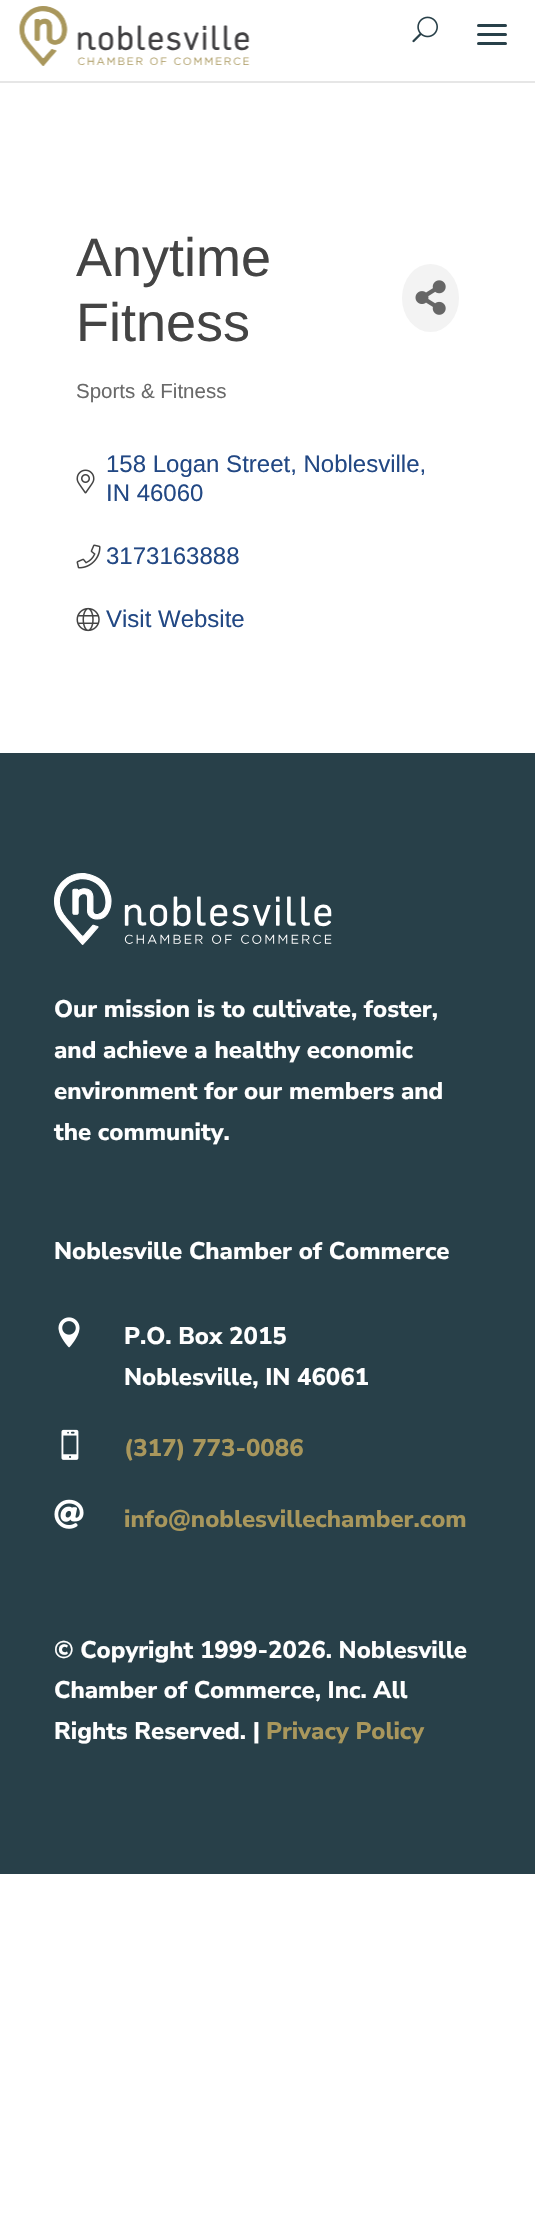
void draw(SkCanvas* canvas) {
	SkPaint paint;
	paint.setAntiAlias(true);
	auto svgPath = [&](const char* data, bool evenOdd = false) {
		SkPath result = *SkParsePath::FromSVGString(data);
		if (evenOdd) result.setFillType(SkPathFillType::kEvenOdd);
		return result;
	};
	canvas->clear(0xffffffff);
	paint.setColor(0xffe6e6e6);
	canvas->drawPath(svgPath("M0 81V83H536V-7V81Z"), paint);
	canvas->drawImageRect(SkImages::DeferredFromEncodedData(SkData::MakeFromFileName("img1.png")), SkRect::MakeXYWH(19, 6, 231, 60), SkSamplingOptions());
	canvas->drawImageRect(SkImages::DeferredFromEncodedData(SkData::MakeFromFileName("img2.png")), SkRect::MakeXYWH(412, 16, 26, 27), SkSamplingOptions());
	paint.setColor(0xff284049);
	canvas->drawRoundRect(SkRect::MakeXYWH(477, 42, 30, 3), 1.5, 1.5, paint);
	canvas->drawRoundRect(SkRect::MakeXYWH(477, 24, 30, 3), 1.5, 1.5, paint);
	canvas->drawRoundRect(SkRect::MakeXYWH(477, 33, 30, 3), 1.5, 1.5, paint);
	SkFont f1(fontMgr->matchFamilyStyle("Liberation Sans", SkFontStyle::Normal()), 54);
	f1.setSubpixel(true);
	paint.setColor(0xff444444);
	canvas->drawString("Anytime", 76, 276, f1, paint);
	canvas->drawString("Fitness", 76, 341, f1, paint);
	paint.setColor(0xfff3f3f3);
	canvas->drawOval(SkRect::MakeXYWH(402, 264, 57, 68), paint);
	canvas->drawImageRect(SkImages::DeferredFromEncodedData(SkData::MakeFromFileName("img3.png")), SkRect::MakeXYWH(415, 280, 31, 35), SkSamplingOptions());
	SkFont f2(fontMgr->matchFamilyStyle("Liberation Sans", SkFontStyle::Normal()), 20.5);
	f2.setSubpixel(true);
	paint.setColor(0xff696969);
	canvas->drawString("Sports & Fitness", 76, 398, f2, paint);
	SkFont f3(fontMgr->matchFamilyStyle("Liberation Sans", SkFontStyle::Normal()), 24);
	f3.setSubpixel(true);
	paint.setColor(0xff224884);
	canvas->drawString("158 Logan Street, Noblesville,", 106, 472, f3, paint);
	canvas->drawImageRect(SkImages::DeferredFromEncodedData(SkData::MakeFromFileName("img4.png")), SkRect::MakeXYWH(76, 469, 19, 25), SkSamplingOptions());
	canvas->drawString("IN 46060", 106, 501, f3, paint);
	canvas->drawImageRect(SkImages::DeferredFromEncodedData(SkData::MakeFromFileName("img5.png")), SkRect::MakeXYWH(76, 544, 25, 25), SkSamplingOptions());
	canvas->drawString("3173163888", 106, 564, f3, paint);
	canvas->drawImageRect(SkImages::DeferredFromEncodedData(SkData::MakeFromFileName("img6.png")), SkRect::MakeXYWH(76, 607, 24, 25), SkSamplingOptions());
	canvas->drawString("Visit Website", 106, 627, f3, paint);
	paint.setColor(0xff284049);
	canvas->drawRect(SkRect::MakeXYWH(0, 753, 535, 1121), paint);
	canvas->drawImageRect(SkImages::DeferredFromEncodedData(SkData::MakeFromFileName("img7.png")), SkRect::MakeXYWH(54, 873, 278, 72), SkSamplingOptions());
	SkFont f4(fontMgr->matchFamilyStyle("Nunito Sans", SkFontStyle(800, SkFontStyle::kNormal_Width, SkFontStyle::kUpright_Slant)), 24);
	f4.setSubpixel(true);
	paint.setColor(0xffffffff);
	canvas->drawString("Our mission is to cultivate, foster,", 54, 1017, f4, paint);
	canvas->drawString("and achieve a healthy economic", 54, 1058, f4, paint);
	canvas->drawString("environment for our members and", 54, 1099, f4, paint);
	canvas->drawString("the community.", 54, 1140, f4, paint);
	canvas->drawString("Noblesville Chamber of Commerce", 54, 1259, f4, paint);
	canvas->drawImageRect(SkImages::DeferredFromEncodedData(SkData::MakeFromFileName("img8.png")), SkRect::MakeXYWH(58, 1317, 22, 31), SkSamplingOptions());
	canvas->drawString("P.O. Box 2015", 124, 1344, f4, paint);
	canvas->drawString("Noblesville, IN 46061", 124, 1385, f4, paint);
	canvas->drawImageRect(SkImages::DeferredFromEncodedData(SkData::MakeFromFileName("img9.png")), SkRect::MakeXYWH(61, 1429, 18, 31), SkSamplingOptions());
	paint.setColor(0xffa9975c);
	canvas->drawString("(317) 773-0086", 124, 1456, f4, paint);
	canvas->drawImageRect(SkImages::DeferredFromEncodedData(SkData::MakeFromFileName("img10.png")), SkRect::MakeXYWH(54, 1499, 30, 30), SkSamplingOptions());
	canvas->drawString("info@noblesvillechamber.com", 124, 1527, f4, paint);
	paint.setColor(0xffffffff);
	canvas->drawString("© Copyright 1999-2026. Noblesville", 54, 1658, f4, paint);
	canvas->drawString("Chamber of Commerce, Inc. All", 54, 1698, f4, paint);
	canvas->drawString("Rights Reserved. |", 54, 1739, f4, paint);
	paint.setColor(0xffa9975c);
	canvas->drawString("Privacy Policy", 266, 1739, f4, paint);
}
